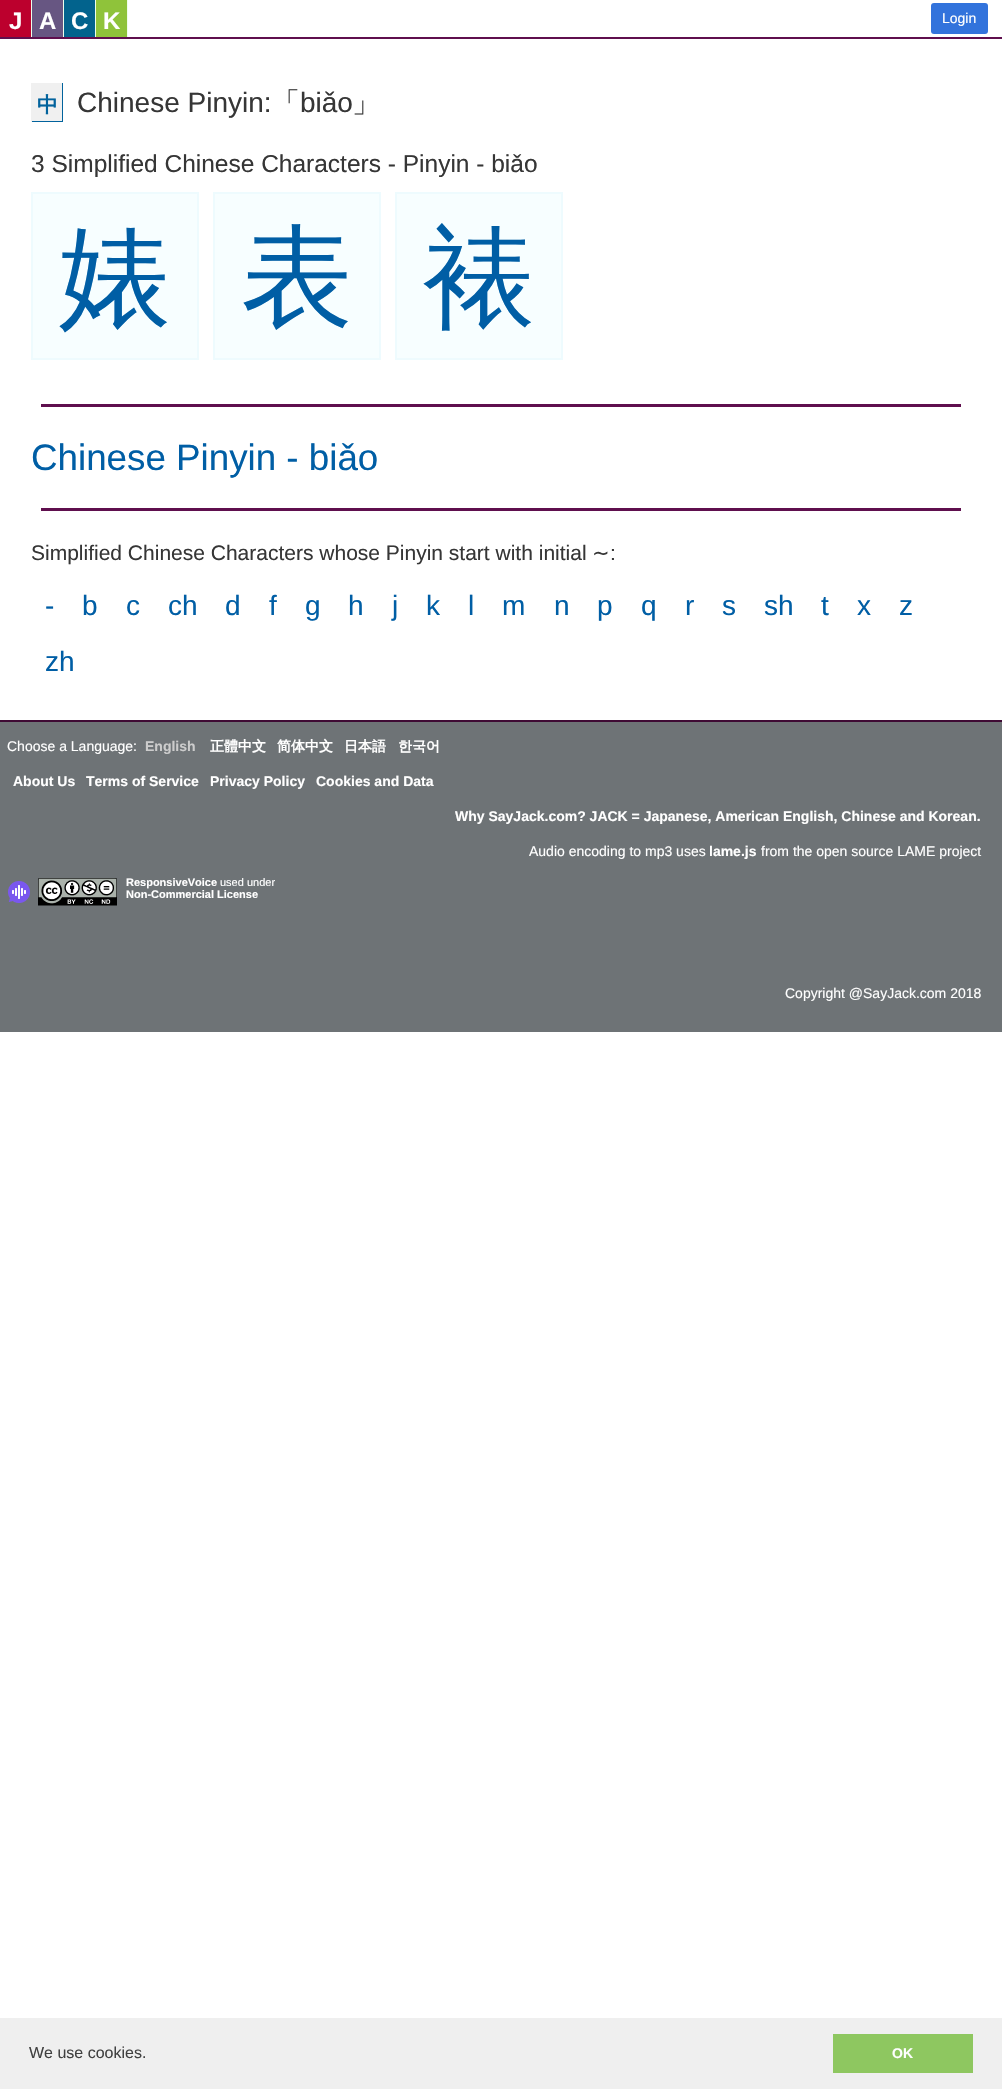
void draw(SkCanvas* canvas) {
	SkPaint paint;
	paint.setAntiAlias(true);
	canvas->clear(0xffffffff);
	paint.setColor(0xff5f0f4e);
	canvas->drawRect(SkRect::MakeXYWH(0, 37, 1002, 2), paint);
	paint.setColor(0xffbc002d);
	canvas->drawRect(SkRect::MakeXYWH(0, 0, 31, 37), paint);
	paint.setColor(0xffeffeec);
	canvas->drawRect(SkRect::MakeXYWH(31, 0, 1, 37), paint);
	SkFont f1(fontMgr->matchFamilyStyle("Liberation Sans", SkFontStyle::Bold()), 24);
	f1.setSubpixel(true);
	paint.setColor(0xffffffff);
	canvas->drawString("J", 9, 29, f1, paint);
	paint.setColor(0xff675682);
	canvas->drawRect(SkRect::MakeXYWH(32, 0, 31, 37), paint);
	paint.setColor(0xffeffeec);
	canvas->drawRect(SkRect::MakeXYWH(63, 0, 1, 37), paint);
	paint.setColor(0xffffffff);
	canvas->drawString("A", 39, 29, f1, paint);
	paint.setColor(0xff02638d);
	canvas->drawRect(SkRect::MakeXYWH(64, 0, 31, 37), paint);
	paint.setColor(0xffeffeec);
	canvas->drawRect(SkRect::MakeXYWH(95, 0, 1, 37), paint);
	paint.setColor(0xffffffff);
	canvas->drawString("C", 71, 29, f1, paint);
	paint.setColor(0xff8fc33a);
	canvas->drawRect(SkRect::MakeXYWH(96, 0, 31, 37), paint);
	paint.setColor(0xffeffeec);
	canvas->drawRect(SkRect::MakeXYWH(127, 0, 1, 37), paint);
	paint.setColor(0xffffffff);
	canvas->drawString("K", 103, 29, f1, paint);
	paint.setColor(0xff3273dc);
	canvas->drawRoundRect(SkRect::MakeXYWH(931, 3, 57, 31), 3, 3, paint);
	SkFont f2(fontMgr->matchFamilyStyle("Liberation Sans", SkFontStyle::Normal()), 14);
	f2.setSubpixel(true);
	paint.setColor(0xffffffff);
	canvas->drawString("Login", 942, 23, f2, paint);
	paint.setColor(0xfff0f0f0);
	canvas->drawRect(SkRect::MakeXYWH(32, 83, 30, 38), paint);
	paint.setColor(0xff02639d);
	canvas->drawRect(SkRect::MakeXYWH(62, 83, 1, 39), paint);
	canvas->drawRect(SkRect::MakeXYWH(31, 121, 32, 1), paint);
	paint.setColor(0xfff0f0f0);
	canvas->drawRect(SkRect::MakeXYWH(31, 83, 1, 39), paint);
	SkFont f3(fontMgr->matchFamilyStyle("WenQuanYi Zen Hei", SkFontStyle::Bold()), 21);
	f3.setSubpixel(true);
	paint.setColor(0xff02639d);
	canvas->drawString("中", 37, 112, f3, paint);
	SkFont f4(fontMgr->matchFamilyStyle("Liberation Sans", SkFontStyle::Normal()), 28);
	f4.setSubpixel(true);
	paint.setColor(0xff363636);
	canvas->drawString("Chinese Pinyin:", 77, 112, f4, paint);
	SkFont f5(fontMgr->matchFamilyStyle("WenQuanYi Zen Hei", SkFontStyle(500, SkFontStyle::kNormal_Width, SkFontStyle::kUpright_Slant)), 28);
	f5.setSubpixel(true);
	canvas->drawString("「", 272, 112, f5, paint);
	canvas->drawString("biǎo", 300, 112, f4, paint);
	canvas->drawString("」", 352, 112, f5, paint);
	SkFont f6(fontMgr->matchFamilyStyle("Liberation Sans", SkFontStyle::Normal()), 24.5);
	f6.setSubpixel(true);
	canvas->drawString("3 Simplified Chinese Characters - Pinyin - biǎo", 31, 172, f6, paint);
	paint.setColor(0xfff7feff);
	canvas->drawRect(SkRect::MakeXYWH(32, 193, 166, 166), paint);
	paint.setStroke(true);
	paint.setStrokeWidth(2);
	paint.setColor(0xffeefbfe);
	canvas->drawRect(SkRect::MakeXYWH(32, 193, 166, 166), paint);
	SkFont f7(fontMgr->matchFamilyStyle("WenQuanYi Zen Hei", SkFontStyle(500, SkFontStyle::kNormal_Width, SkFontStyle::kUpright_Slant)), 112);
	f7.setSubpixel(true);
	paint.setStroke(false);
	paint.setColor(0xff005ea5);
	canvas->drawString("婊", 59, 316, f7, paint);
	paint.setColor(0xfff7feff);
	canvas->drawRect(SkRect::MakeXYWH(214, 193, 166, 166), paint);
	paint.setStroke(true);
	paint.setColor(0xffeefbfe);
	canvas->drawRect(SkRect::MakeXYWH(214, 193, 166, 166), paint);
	paint.setStroke(false);
	paint.setColor(0xff005ea5);
	canvas->drawString("表", 241, 316, f7, paint);
	paint.setColor(0xfff7feff);
	canvas->drawRect(SkRect::MakeXYWH(396, 193, 166, 166), paint);
	paint.setStroke(true);
	paint.setColor(0xffeefbfe);
	canvas->drawRect(SkRect::MakeXYWH(396, 193, 166, 166), paint);
	paint.setStroke(false);
	paint.setColor(0xff005ea5);
	canvas->drawString("裱", 423, 316, f7, paint);
	paint.setColor(0xff5f0f4e);
	canvas->drawRect(SkRect::MakeXYWH(41, 404, 920, 3), paint);
	SkFont f8(fontMgr->matchFamilyStyle("Liberation Sans", SkFontStyle::Normal()), 36.75);
	f8.setSubpixel(true);
	paint.setColor(0xff005ea5);
	canvas->drawString("Chinese Pinyin - biǎo", 31, 470, f8, paint);
	paint.setColor(0xff5f0f4e);
	canvas->drawRect(SkRect::MakeXYWH(41, 508, 920, 3), paint);
	SkFont f9(fontMgr->matchFamilyStyle("Liberation Sans", SkFontStyle::Normal()), 21);
	f9.setSubpixel(true);
	paint.setColor(0xff363636);
	canvas->drawString("Simplified Chinese Characters whose Pinyin start with initial", 31, 560, f9, paint);
	SkFont f10(fontMgr->matchFamilyStyle("DejaVu Sans", SkFontStyle::Normal()), 21);
	f10.setSubpixel(true);
	canvas->drawString("∼", 592, 560, f10, paint);
	canvas->drawString(":", 610, 560, f9, paint);
	paint.setColor(0xff005ea5);
	canvas->drawString("-", 45, 615, f4, paint);
	canvas->drawString("b", 82, 615, f4, paint);
	canvas->drawString("c", 126, 615, f4, paint);
	canvas->drawString("ch", 168, 615, f4, paint);
	canvas->drawString("d", 225, 615, f4, paint);
	canvas->drawString("f", 269, 615, f4, paint);
	canvas->drawString("g", 305, 615, f4, paint);
	canvas->drawString("h", 348, 615, f4, paint);
	canvas->drawString("j", 392, 615, f4, paint);
	canvas->drawString("k", 426, 615, f4, paint);
	canvas->drawString("l", 468, 615, f4, paint);
	canvas->drawString("m", 502, 615, f4, paint);
	canvas->drawString("n", 554, 615, f4, paint);
	canvas->drawString("p", 597, 615, f4, paint);
	canvas->drawString("q", 641, 615, f4, paint);
	canvas->drawString("r", 685, 615, f4, paint);
	canvas->drawString("s", 722, 615, f4, paint);
	canvas->drawString("sh", 764, 615, f4, paint);
	canvas->drawString("t", 821, 615, f4, paint);
	canvas->drawString("x", 857, 615, f4, paint);
	canvas->drawString("z", 899, 615, f4, paint);
	canvas->drawString("zh", 45, 671, f4, paint);
	paint.setColor(0xff6e7376);
	canvas->drawRect(SkRect::MakeXYWH(0, 722, 1002, 310), paint);
	paint.setColor(0xff3f0a34);
	canvas->drawRect(SkRect::MakeXYWH(0, 720, 1002, 2), paint);
	paint.setColor(0xffffffff);
	canvas->drawString("Choose a Language:", 7, 751, f2, paint);
	SkFont f11(fontMgr->matchFamilyStyle("Liberation Sans", SkFontStyle::Bold()), 14);
	f11.setSubpixel(true);
	paint.setColor(0xffcccccc);
	canvas->drawString("English", 145, 751, f11, paint);
	SkFont f12(fontMgr->matchFamilyStyle("WenQuanYi Zen Hei", SkFontStyle::Bold()), 14);
	f12.setSubpixel(true);
	paint.setColor(0xffffffff);
	canvas->drawString("正體中文", 210, 751, f12, paint);
	canvas->drawString("简体中文", 277, 751, f12, paint);
	canvas->drawString("日本語", 344, 751, f12, paint);
	canvas->drawString("한국어", 398, 751, f12, paint);
	canvas->drawString("About Us", 13, 786, f11, paint);
	canvas->drawString("Terms of Service", 86, 786, f11, paint);
	canvas->drawString("Privacy Policy", 210, 786, f11, paint);
	canvas->drawString("Cookies and Data", 316, 786, f11, paint);
	canvas->drawString("Why SayJack.com? JACK = Japanese, American English, Chinese and Korean.", 455, 821, f11, paint);
	canvas->drawString("Audio encoding to mp3 uses", 529, 856, f2, paint);
	canvas->drawString("lame.js", 709, 856, f11, paint);
	canvas->drawString("from the open source LAME project", 761, 856, f2, paint);
	canvas->drawImageRect(SkImages::DeferredFromEncodedData(SkData::MakeFromFileName("img1.png")), SkRect::MakeXYWH(8, 878, 109, 28), SkSamplingOptions());
	SkFont f13(fontMgr->matchFamilyStyle("Liberation Sans", SkFontStyle::Bold()), 11);
	f13.setSubpixel(true);
	canvas->drawString("ResponsiveVoice", 126, 886, f13, paint);
	SkFont f14(fontMgr->matchFamilyStyle("Liberation Sans", SkFontStyle::Normal()), 11);
	f14.setSubpixel(true);
	canvas->drawString("used under", 220, 886, f14, paint);
	canvas->drawString("Non-Commercial License", 126, 898, f13, paint);
	canvas->drawString("Copyright @SayJack.com 2018", 785, 998, f2, paint);
	paint.setColor(0xffefefef);
	canvas->drawRect(SkRect::MakeXYWH(0, 2018, 1002, 71), paint);
	SkFont f15(fontMgr->matchFamilyStyle("Liberation Sans", SkFontStyle::Normal()), 16);
	f15.setSubpixel(true);
	paint.setColor(0xff404040);
	canvas->drawString("We use cookies.", 29, 2058, f15, paint);
	paint.setColor(0xff8ec760);
	canvas->drawRect(SkRect::MakeXYWH(833, 2034, 140, 39), paint);
	paint.setColor(0xffffffff);
	canvas->drawString("OK", 892, 2058, f11, paint);
}
